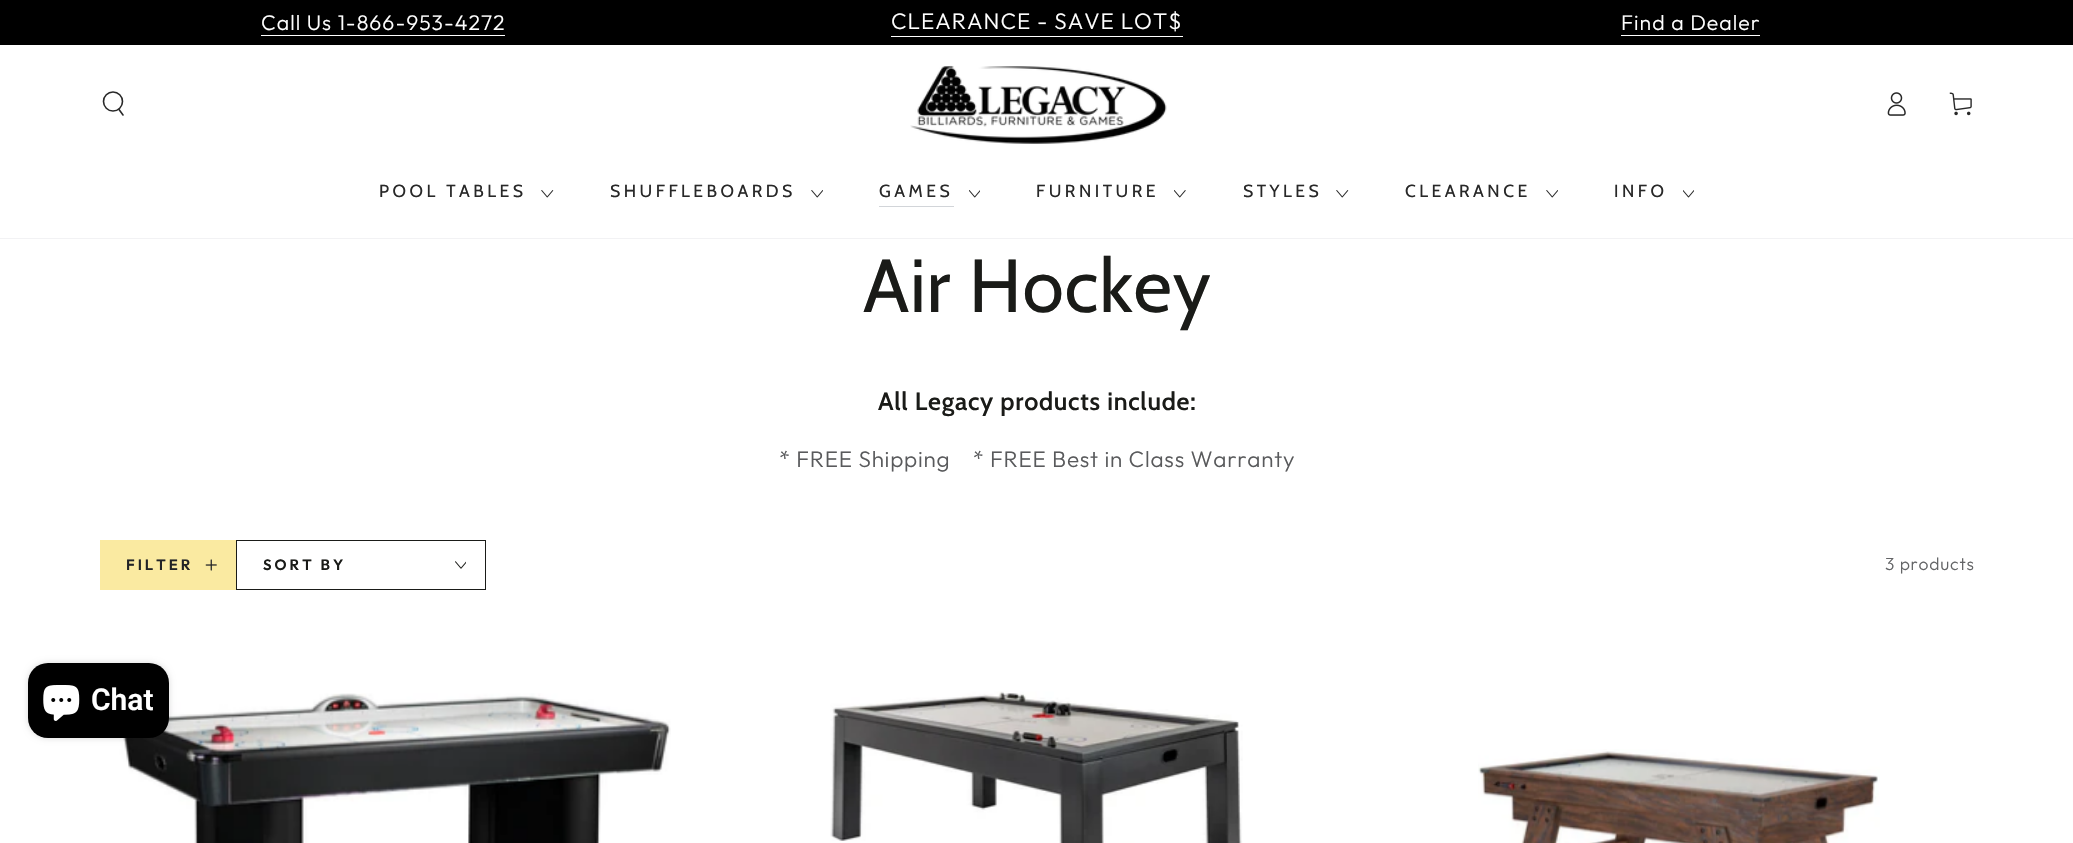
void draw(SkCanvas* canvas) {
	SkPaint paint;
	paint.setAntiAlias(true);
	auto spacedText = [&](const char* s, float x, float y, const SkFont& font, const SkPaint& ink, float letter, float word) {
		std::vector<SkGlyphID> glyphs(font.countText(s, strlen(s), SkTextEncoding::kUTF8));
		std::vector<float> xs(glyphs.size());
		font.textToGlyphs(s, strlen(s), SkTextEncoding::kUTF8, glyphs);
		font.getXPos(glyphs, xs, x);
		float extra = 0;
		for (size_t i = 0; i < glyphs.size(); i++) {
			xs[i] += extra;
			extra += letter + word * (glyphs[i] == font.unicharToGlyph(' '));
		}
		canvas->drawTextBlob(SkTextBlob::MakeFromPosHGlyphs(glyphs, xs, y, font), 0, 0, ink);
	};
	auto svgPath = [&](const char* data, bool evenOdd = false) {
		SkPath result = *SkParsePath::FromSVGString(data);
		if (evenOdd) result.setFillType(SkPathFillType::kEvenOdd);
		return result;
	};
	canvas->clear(0xffffffff);
	paint.setColor(0xff000000);
	canvas->drawRect(SkRect::MakeXYWH(0, 0, 2073, 45), paint);
	paint.setColor(0xffffffff);
	canvas->drawRect(SkRect::MakeXYWH(261, 35, 244, 1), paint);
	SkFont f1(fontMgr->matchFamilyStyle("Outfit", SkFontStyle(300, SkFontStyle::kNormal_Width, SkFontStyle::kUpright_Slant)), 21.25);
	f1.setSubpixel(true);
	spacedText("Call Us 1-866-953-4272", 261, 30, f1, paint, 1, 0);
	canvas->drawRect(SkRect::MakeXYWH(891, 36, 292, 1), paint);
	SkFont f2(fontMgr->matchFamilyStyle("Outfit", SkFontStyle(300, SkFontStyle::kNormal_Width, SkFontStyle::kUpright_Slant)), 22.5);
	f2.setSubpixel(true);
	spacedText("CLEARANCE - SAVE LOT$", 891, 29, f2, paint, 1, 0);
	canvas->drawRect(SkRect::MakeXYWH(1621, 35, 139, 1), paint);
	spacedText("Find a Dealer", 1621, 30, f1, paint, 1, 0);
	paint.setColor(0xfff2f2f4);
	canvas->drawPath(svgPath("M0 238V239H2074V46V238Z"), paint);
	paint.setStroke(true);
	paint.setStrokeWidth(1.6);
	paint.setColor(0xff282828);
	canvas->drawCircle(113, 101.5, 9.5, paint);
	paint.setStrokeCap(SkPaint::kRound_Cap);
	canvas->drawPath(svgPath("M119 109.5L123 115"), paint);
	canvas->drawImageRect(SkImages::DeferredFromEncodedData(SkData::MakeFromFileName("img1.png")), SkRect::MakeXYWH(910, 65, 257, 79), SkSamplingOptions());
	canvas->drawImageRect(SkImages::DeferredFromEncodedData(SkData::MakeFromFileName("img2.png")), SkRect::MakeXYWH(1887, 92, 19, 24), SkSamplingOptions());
	canvas->drawImageRect(SkImages::DeferredFromEncodedData(SkData::MakeFromFileName("img3.png")), SkRect::MakeXYWH(1949, 92, 23, 24), SkSamplingOptions());
	SkFont f3(fontMgr->matchFamilyStyle("Cabin", SkFontStyle::Normal()), 17.5);
	f3.setSubpixel(true);
	paint.setStroke(false);
	spacedText("POOL TABLES", 379, 197, f3, paint, 3.5, 0);
	canvas->drawImageRect(SkImages::DeferredFromEncodedData(SkData::MakeFromFileName("img4.png")), SkRect::MakeXYWH(541, 190, 13, 8), SkSamplingOptions());
	spacedText("SHUFFLEBOARDS", 610, 197, f3, paint, 3.5, 0);
	canvas->drawImageRect(SkImages::DeferredFromEncodedData(SkData::MakeFromFileName("img5.png")), SkRect::MakeXYWH(811, 190, 12, 8), SkSamplingOptions());
	paint.setColor(0xffd2d5d9);
	canvas->drawRect(SkRect::MakeXYWH(879, 206, 75, 1), paint);
	paint.setColor(0xff282828);
	spacedText("GAMES", 879, 197, f3, paint, 3.5, 0);
	canvas->drawImageRect(SkImages::DeferredFromEncodedData(SkData::MakeFromFileName("img6.png")), SkRect::MakeXYWH(969, 190, 11, 8), SkSamplingOptions());
	spacedText("FURNITURE", 1036, 197, f3, paint, 3.5, 0);
	canvas->drawImageRect(SkImages::DeferredFromEncodedData(SkData::MakeFromFileName("img7.png")), SkRect::MakeXYWH(1174, 190, 12, 8), SkSamplingOptions());
	spacedText("STYLES", 1243, 197, f3, paint, 3.5, 0);
	canvas->drawImageRect(SkImages::DeferredFromEncodedData(SkData::MakeFromFileName("img4.png")), SkRect::MakeXYWH(1336, 190, 13, 8), SkSamplingOptions());
	spacedText("CLEARANCE", 1405, 197, f3, paint, 3.5, 0);
	canvas->drawImageRect(SkImages::DeferredFromEncodedData(SkData::MakeFromFileName("img5.png")), SkRect::MakeXYWH(1546, 190, 12, 8), SkSamplingOptions());
	spacedText("INFO", 1614, 197, f3, paint, 3.5, 0);
	canvas->drawImageRect(SkImages::DeferredFromEncodedData(SkData::MakeFromFileName("img8.png")), SkRect::MakeXYWH(1683, 190, 11, 8), SkSamplingOptions());
	SkFont f4(fontMgr->matchFamilyStyle("Cabin", SkFontStyle::Normal()), 75);
	f4.setSubpixel(true);
	paint.setColor(0xff1a1b18);
	spacedText("Air Hockey", 863, 312, f4, paint, 0.75, 0);
	SkFont f5(fontMgr->matchFamilyStyle("Cabin", SkFontStyle(600, SkFontStyle::kNormal_Width, SkFontStyle::kUpright_Slant)), 25);
	f5.setSubpixel(true);
	spacedText("All Legacy products include:", 878, 410, f5, paint, 0.75, 0);
	paint.setColor(0xff595a5c);
	spacedText("* FREE Shipping    * FREE Best in Class Warranty", 779, 467, f2, paint, 0.75, 0);
	paint.setColor(0xfffaeaa1);
	canvas->drawRect(SkRect::MakeXYWH(100, 540, 136, 50), paint);
	SkFont f6(fontMgr->matchFamilyStyle("Outfit", SkFontStyle(600, SkFontStyle::kNormal_Width, SkFontStyle::kUpright_Slant)), 15);
	f6.setSubpixel(true);
	paint.setColor(0xff212326);
	spacedText("FILTER", 126, 570, f6, paint, 3, 0);
	canvas->drawImageRect(SkImages::DeferredFromEncodedData(SkData::MakeFromFileName("img9.png")), SkRect::MakeXYWH(205, 559, 12, 12), SkSamplingOptions());
	paint.setStroke(true);
	paint.setStrokeWidth(1);
	paint.setStrokeCap(SkPaint::kButt_Cap);
	paint.setColor(0xff1a1b18);
	canvas->drawRect(SkRect::MakeXYWH(236.5, 540.5, 249, 49), paint);
	paint.setStroke(false);
	spacedText("SORT BY", 263, 570, f6, paint, 3, 0);
	canvas->drawImageRect(SkImages::DeferredFromEncodedData(SkData::MakeFromFileName("img10.png")), SkRect::MakeXYWH(455, 561, 11, 8), SkSamplingOptions());
	SkFont f7(fontMgr->matchFamilyStyle("Outfit", SkFontStyle(300, SkFontStyle::kNormal_Width, SkFontStyle::kUpright_Slant)), 17.5);
	f7.setSubpixel(true);
	paint.setColor(0xff646567);
	spacedText("3 products", 1885, 570, f7, paint, 0.75, 0);
	canvas->drawImageRect(SkImages::DeferredFromEncodedData(SkData::MakeFromFileName("img11.png")), SkRect::MakeXYWH(119, 693, 552, 150), SkSamplingOptions());
	canvas->drawImageRect(SkImages::DeferredFromEncodedData(SkData::MakeFromFileName("img12.png")), SkRect::MakeXYWH(830, 691, 413, 152), SkSamplingOptions());
	canvas->drawImageRect(SkImages::DeferredFromEncodedData(SkData::MakeFromFileName("img13.png")), SkRect::MakeXYWH(1478, 749, 402, 94), SkSamplingOptions());
	paint.setColor(0x26000000);
	paint.setMaskFilter(SkMaskFilter::MakeBlur(kNormal_SkBlurStyle, 3));
	canvas->drawRoundRect(SkRect::MakeXYWH(28, 663, 141, 75), 20, 20, paint);
	paint.setMaskFilter(nullptr);
	paint.setColor(0xff000000);
	canvas->drawRoundRect(SkRect::MakeXYWH(28, 663, 141, 75), 20, 20, paint);
	canvas->drawImageRect(SkImages::DeferredFromEncodedData(SkData::MakeFromFileName("img14.png")), SkRect::MakeXYWH(43, 685, 37, 36), SkSamplingOptions());
	SkFont f8(fontMgr->matchFamilyStyle("Roboto", SkFontStyle(600, SkFontStyle::kNormal_Width, SkFontStyle::kUpright_Slant)), 30);
	f8.setSubpixel(true);
	paint.setColor(0xffffffff);
	canvas->drawString("Chat", 91, 710, f8, paint);
}
